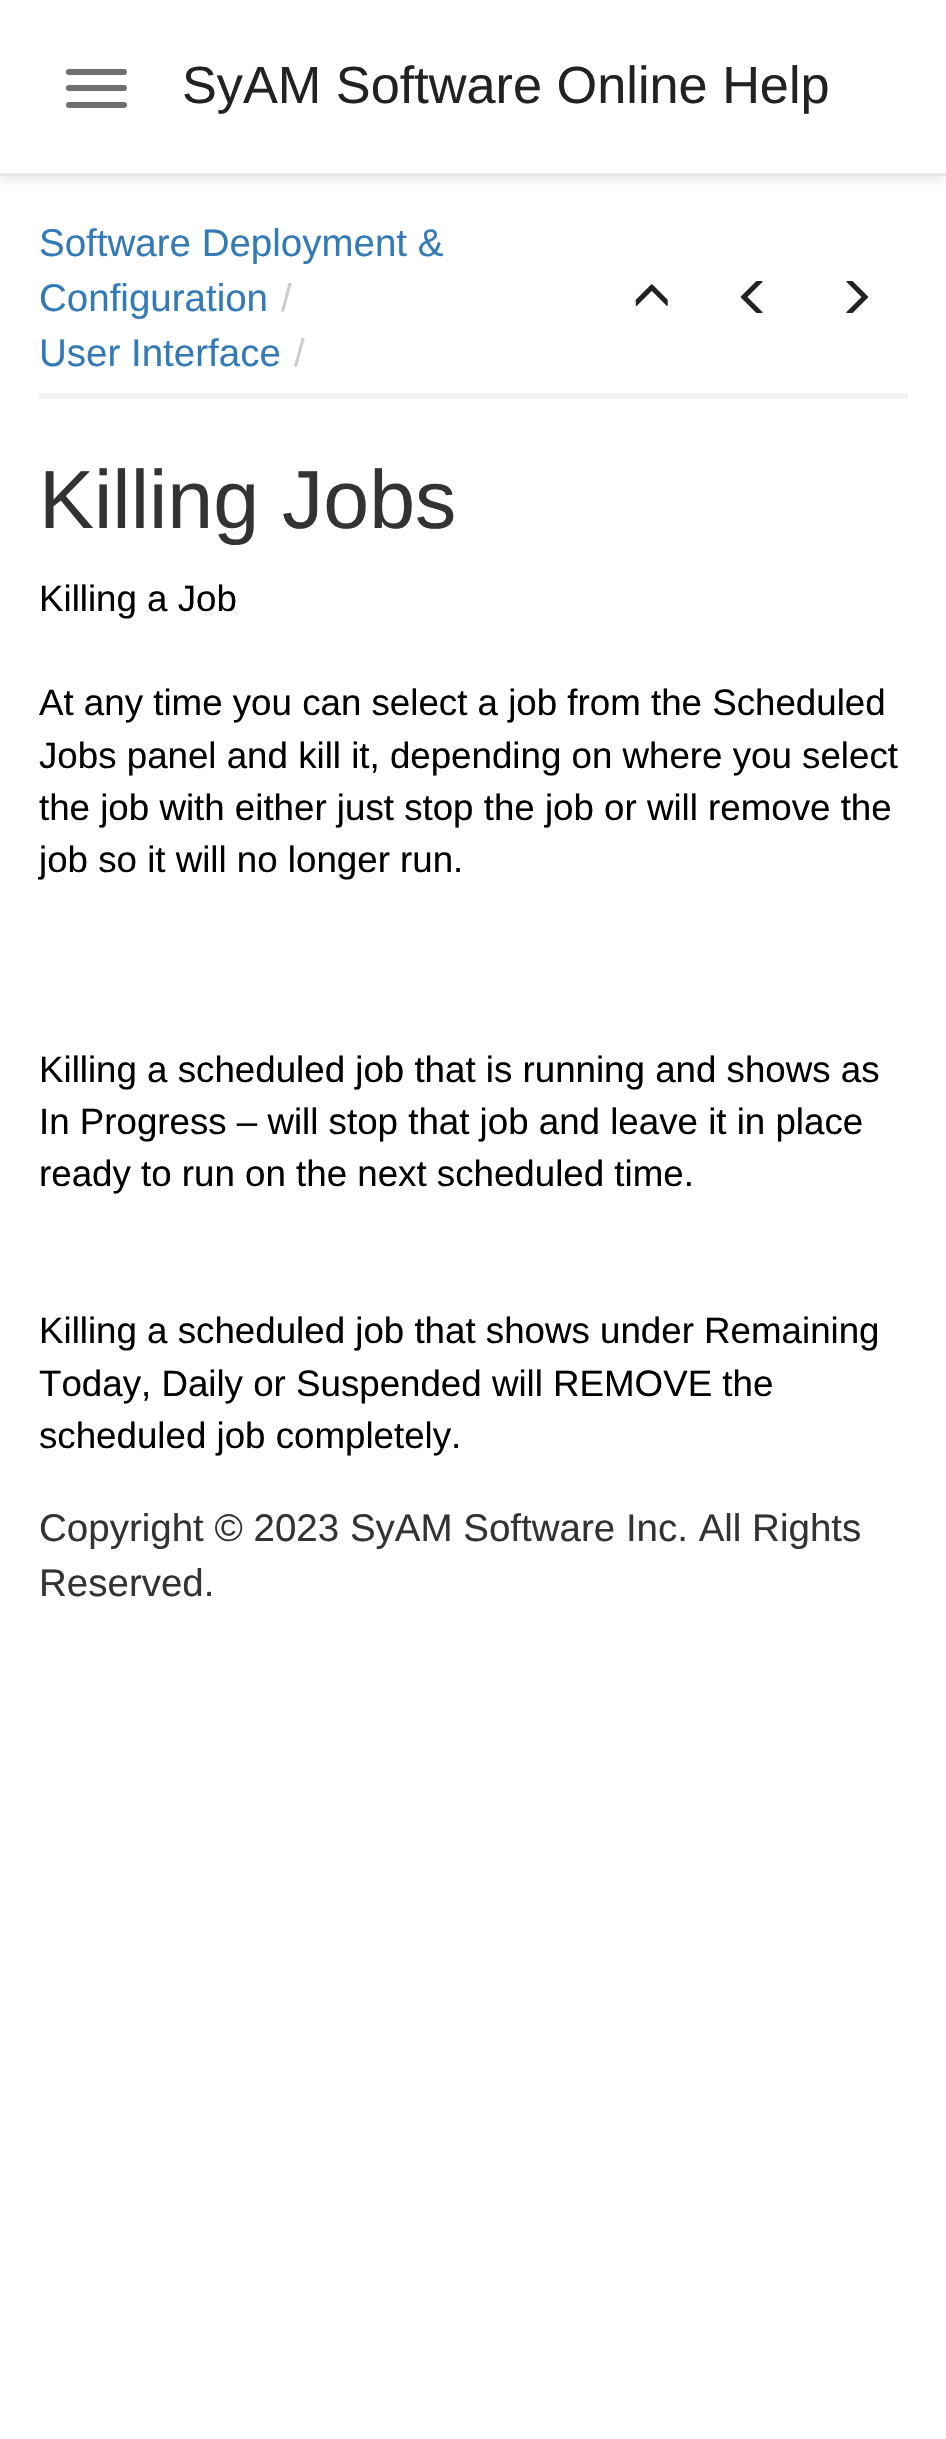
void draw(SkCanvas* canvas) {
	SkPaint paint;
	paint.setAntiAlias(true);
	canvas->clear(0xffffffff);
	canvas->save();
	canvas->clipRect(SkRect::MakeXYWH(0, 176, 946, 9));
	paint.setColor(0x1a000000);
	paint.setMaskFilter(SkMaskFilter::MakeBlur(kNormal_SkBlurStyle, 7));
	canvas->drawRect(SkRect::MakeXYWH(0, 3, 946, 176), paint);
	paint.setMaskFilter(nullptr);
	canvas->restore();
	paint.setColor(0xffe6e6e6);
	canvas->drawRect(SkRect::MakeXYWH(0, 173, 946, 3), paint);
	paint.setColor(0xff6f6f6f);
	canvas->drawRoundRect(SkRect::MakeXYWH(66, 69, 61, 6), 3, 3, paint);
	canvas->drawRoundRect(SkRect::MakeXYWH(66, 85, 61, 6), 3, 3, paint);
	canvas->drawRoundRect(SkRect::MakeXYWH(66, 102, 61, 6), 3, 3, paint);
	SkFont f1(fontMgr->matchFamilyStyle("Liberation Sans", SkFontStyle::Normal()), 52.25);
	f1.setSubpixel(true);
	paint.setColor(0xff222222);
	canvas->drawString("SyAM Software Online Help", 182, 103, f1, paint);
	paint.setColor(0xfff2f2f2);
	canvas->drawRect(SkRect::MakeXYWH(39, 393, 869, 6), paint);
	SkFont f2(fontMgr->matchFamilyStyle("Liberation Sans", SkFontStyle::Normal()), 38.5);
	f2.setSubpixel(true);
	paint.setColor(0xff337ab7);
	canvas->drawString("Software Deployment &", 39, 256, f2, paint);
	canvas->drawString("Configuration", 39, 311, f2, paint);
	paint.setColor(0xffcccccc);
	canvas->drawString("/", 281, 311, f2, paint);
	paint.setColor(0xff337ab7);
	canvas->drawString("User Interface", 39, 366, f2, paint);
	paint.setColor(0xffcccccc);
	canvas->drawString("/", 294, 366, f2, paint);
	canvas->drawImageRect(SkImages::DeferredFromEncodedData(SkData::MakeFromFileName("img1.png")), SkRect::MakeXYWH(635, 284, 33, 23), SkSamplingOptions());
	canvas->drawImageRect(SkImages::DeferredFromEncodedData(SkData::MakeFromFileName("img2.png")), SkRect::MakeXYWH(740, 281, 23, 32), SkSamplingOptions());
	canvas->drawImageRect(SkImages::DeferredFromEncodedData(SkData::MakeFromFileName("img3.png")), SkRect::MakeXYWH(846, 281, 23, 32), SkSamplingOptions());
	SkFont f3(fontMgr->matchFamilyStyle("Liberation Sans", SkFontStyle::Normal()), 82.5);
	f3.setSubpixel(true);
	paint.setColor(0xff333333);
	canvas->drawString("Killing Jobs", 39, 528, f3, paint);
	SkFont f4(fontMgr->matchFamilyStyle("Liberation Sans", SkFontStyle::Normal()), 36.7);
	f4.setSubpixel(true);
	paint.setColor(0xff000000);
	canvas->drawString("Killing a Job", 39, 611, f4, paint);
	canvas->drawString("At any time you can select a job from the Scheduled", 39, 715, f4, paint);
	canvas->drawString("Jobs panel and kill it, depending on where you select", 39, 768, f4, paint);
	canvas->drawString("the job with either just stop the job or will remove the", 39, 820, f4, paint);
	canvas->drawString("job so it will no longer run.", 39, 872, f4, paint);
	canvas->drawString("Killing a scheduled job that is running and shows as", 39, 1082, f4, paint);
	canvas->drawString("In Progress – will stop that job and leave it in place", 39, 1134, f4, paint);
	canvas->drawString("ready to run on the next scheduled time.", 39, 1186, f4, paint);
	canvas->drawString("Killing a scheduled job that shows under Remaining", 39, 1343, f4, paint);
	canvas->drawString("Today, Daily or Suspended will REMOVE the", 39, 1396, f4, paint);
	canvas->drawString("scheduled job completely.", 39, 1448, f4, paint);
	paint.setColor(0xff333333);
	canvas->drawString("Copyright © 2023 SyAM Software Inc. All Rights", 39, 1541, f2, paint);
	canvas->drawString("Reserved.", 39, 1596, f2, paint);
}
